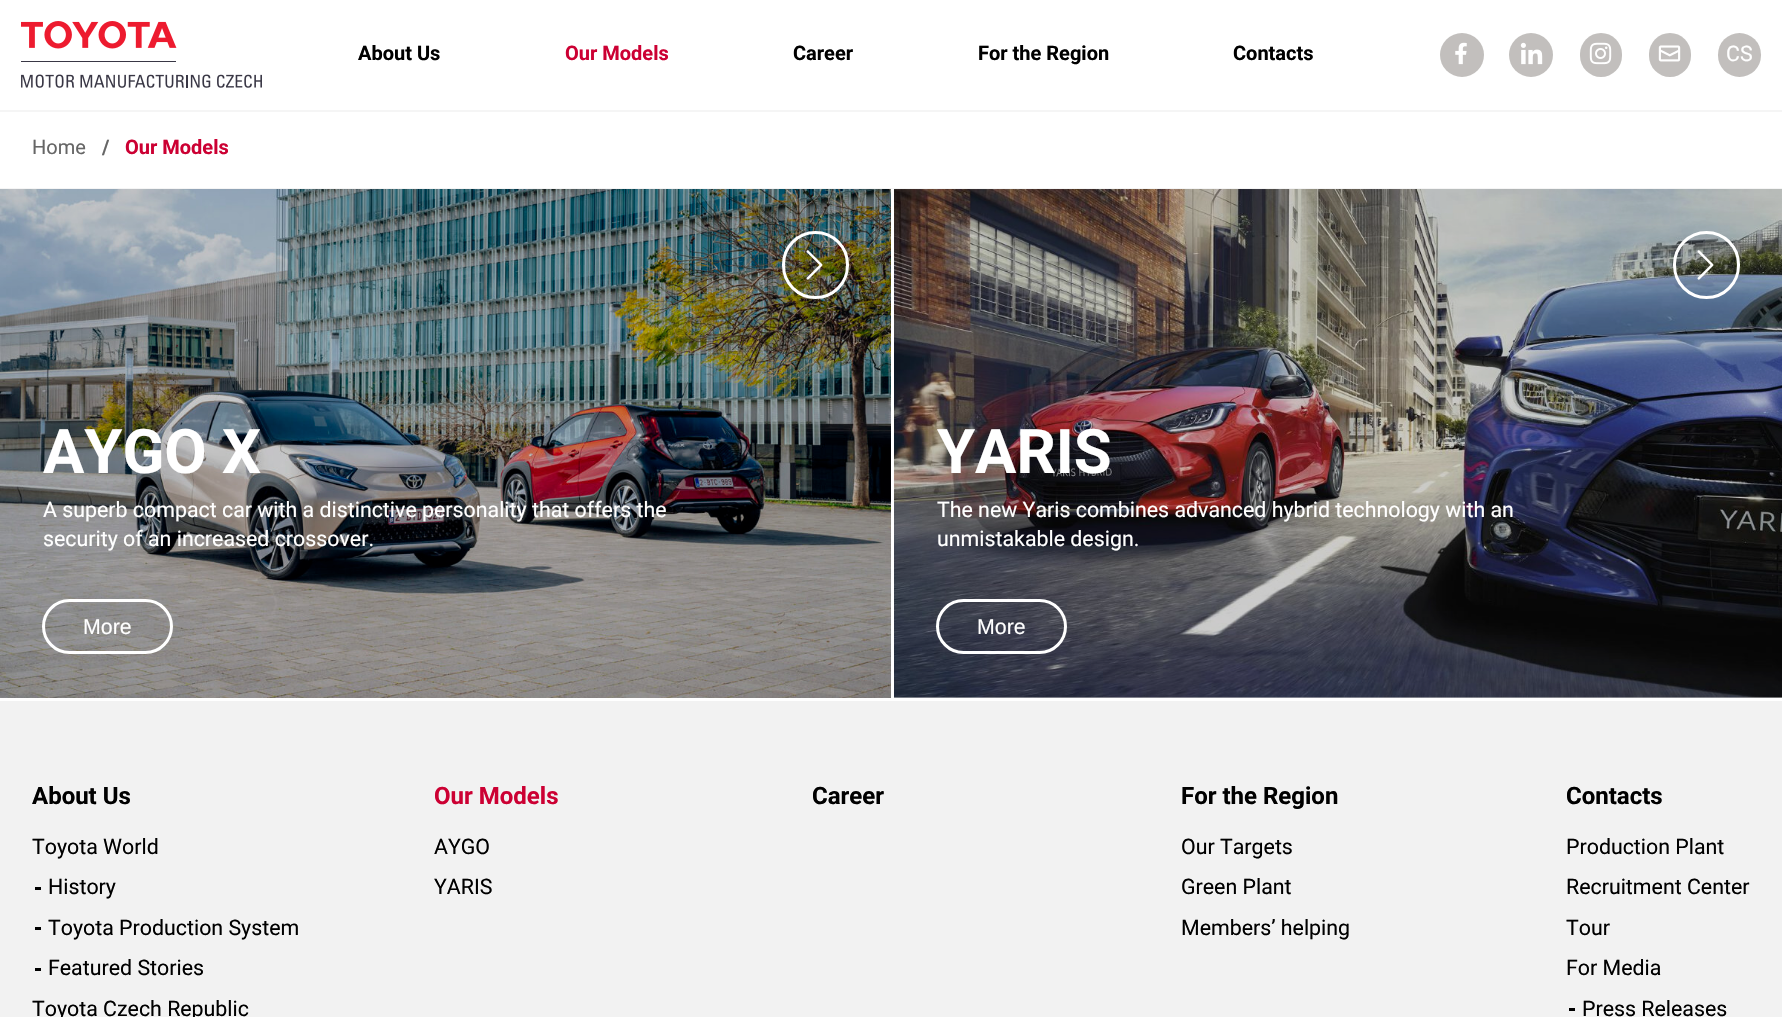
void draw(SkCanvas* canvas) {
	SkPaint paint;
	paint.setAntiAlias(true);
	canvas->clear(0xffffffff);
	paint.setColor(0xffcccccc);
	canvas->drawRect(SkRect::MakeXYWH(894, 697, 888, 1), paint);
	paint.setColor(0xfff5f5f5);
	canvas->drawRect(SkRect::MakeXYWH(0, 110, 1782, 2), paint);
	canvas->drawImageRect(SkImages::DeferredFromEncodedData(SkData::MakeFromFileName("img1.png")), SkRect::MakeXYWH(21, 21, 241, 67), SkSamplingOptions());
	SkFont f1(fontMgr->matchFamilyStyle("Roboto", SkFontStyle::Bold()), 20);
	f1.setSubpixel(true);
	paint.setColor(0xff000000);
	canvas->drawString("About Us", 358, 60, f1, paint);
	paint.setColor(0xffcc0033);
	canvas->drawString("Our Models", 565, 60, f1, paint);
	paint.setColor(0xff000000);
	canvas->drawString("Career", 793, 60, f1, paint);
	canvas->drawString("For the Region", 978, 60, f1, paint);
	canvas->drawString("Contacts", 1233, 60, f1, paint);
	paint.setColor(0xffc2bfbd);
	canvas->drawCircle(1462, 55, 22, paint);
	canvas->drawImageRect(SkImages::DeferredFromEncodedData(SkData::MakeFromFileName("img2.png")), SkRect::MakeXYWH(1455, 42, 12, 23), SkSamplingOptions());
	canvas->drawCircle(1531, 55, 22, paint);
	canvas->drawImageRect(SkImages::DeferredFromEncodedData(SkData::MakeFromFileName("img3.png")), SkRect::MakeXYWH(1520, 42, 23, 23), SkSamplingOptions());
	canvas->drawRoundRect(SkRect::MakeXYWH(1580, 33, 42, 44), 21, 21, paint);
	canvas->drawImageRect(SkImages::DeferredFromEncodedData(SkData::MakeFromFileName("img4.png")), SkRect::MakeXYWH(1589, 42, 23, 23), SkSamplingOptions());
	canvas->drawRoundRect(SkRect::MakeXYWH(1649, 33, 42, 44), 21, 21, paint);
	canvas->drawImageRect(SkImages::DeferredFromEncodedData(SkData::MakeFromFileName("img5.png")), SkRect::MakeXYWH(1658, 45, 23, 17), SkSamplingOptions());
	canvas->drawRoundRect(SkRect::MakeXYWH(1718, 33, 43, 44), 21.5, 21.5, paint);
	SkFont f2(fontMgr->matchFamilyStyle("Roboto", SkFontStyle::Normal()), 21.35);
	f2.setSubpixel(true);
	paint.setColor(0xffffffff);
	canvas->drawString("CS", 1726, 61, f2, paint);
	paint.setColor(0xfff5f5f5);
	canvas->drawRect(SkRect::MakeXYWH(0, 188, 1782, 1), paint);
	SkFont f3(fontMgr->matchFamilyStyle("Roboto", SkFontStyle::Normal()), 20);
	f3.setSubpixel(true);
	paint.setColor(0xff666666);
	canvas->drawString("Home", 32, 154, f3, paint);
	canvas->drawString("/", 102, 154, f1, paint);
	paint.setColor(0xffcc0033);
	canvas->drawString("Our Models", 125, 154, f1, paint);
	canvas->drawImageRect(SkImages::DeferredFromEncodedData(SkData::MakeFromFileName("img6.png")), SkRect::MakeXYWH(0, 189, 891, 509), SkSamplingOptions());
	paint.setStroke(true);
	paint.setStrokeWidth(3);
	paint.setColor(0xffffffff);
	canvas->drawRoundRect(SkRect::MakeXYWH(783.5, 232.5, 64, 65), 32, 32, paint);
	canvas->drawImageRect(SkImages::DeferredFromEncodedData(SkData::MakeFromFileName("img7.png")), SkRect::MakeXYWH(806, 250, 17, 30), SkSamplingOptions());
	SkFont f4(fontMgr->matchFamilyStyle("Roboto", SkFontStyle::Bold()), 61.5);
	f4.setSubpixel(true);
	paint.setStroke(false);
	canvas->drawString("AYGO X", 43, 473, f4, paint);
	canvas->drawString("A superb compact car with a distinctive personality that offers the", 43, 517, f2, paint);
	canvas->drawString("security of an increased crossover.", 43, 546, f2, paint);
	paint.setStroke(true);
	canvas->drawRoundRect(SkRect::MakeXYWH(43.5, 600.5, 128, 52), 26, 26, paint);
	SkFont f5(fontMgr->matchFamilyStyle("Liberation Sans", SkFontStyle::Normal()), 21.35);
	f5.setSubpixel(true);
	paint.setStroke(false);
	canvas->drawString("More", 83, 634, f5, paint);
	canvas->drawImageRect(SkImages::DeferredFromEncodedData(SkData::MakeFromFileName("img8.png")), SkRect::MakeXYWH(894, 189, 888, 509), SkSamplingOptions());
	paint.setStroke(true);
	canvas->drawRoundRect(SkRect::MakeXYWH(1674.5, 232.5, 64, 65), 32, 32, paint);
	canvas->drawImageRect(SkImages::DeferredFromEncodedData(SkData::MakeFromFileName("img9.png")), SkRect::MakeXYWH(1697, 250, 17, 30), SkSamplingOptions());
	paint.setStroke(false);
	canvas->drawString("YARIS", 937, 473, f4, paint);
	canvas->drawString("The new Yaris combines advanced hybrid technology with an", 937, 517, f2, paint);
	canvas->drawString("unmistakable design.", 937, 546, f2, paint);
	paint.setStroke(true);
	canvas->drawRoundRect(SkRect::MakeXYWH(937.5, 600.5, 128, 52), 26, 26, paint);
	paint.setStroke(false);
	canvas->drawString("More", 977, 634, f5, paint);
	paint.setColor(0xfff2f2f2);
	canvas->drawRect(SkRect::MakeXYWH(0, 701, 1782, 316), paint);
	SkFont f6(fontMgr->matchFamilyStyle("Roboto", SkFontStyle::Bold()), 24);
	f6.setSubpixel(true);
	paint.setColor(0xff000000);
	canvas->drawString("About Us", 32, 804, f6, paint);
	canvas->drawString("Toyota World", 32, 854, f2, paint);
	canvas->drawRect(SkRect::MakeXYWH(35, 887, 6, 3), paint);
	canvas->drawString("History", 48, 894, f2, paint);
	canvas->drawRect(SkRect::MakeXYWH(35, 927, 6, 3), paint);
	canvas->drawString("Toyota Production System", 48, 935, f2, paint);
	canvas->drawRect(SkRect::MakeXYWH(35, 968, 6, 3), paint);
	canvas->drawString("Featured Stories", 48, 975, f2, paint);
	canvas->drawString("Toyota Czech Republic", 32, 1016, f2, paint);
	paint.setColor(0xffcc0033);
	canvas->drawString("Our Models", 434, 804, f6, paint);
	paint.setColor(0xff000000);
	canvas->drawString("AYGO", 434, 854, f2, paint);
	canvas->drawString("YARIS", 434, 894, f2, paint);
	canvas->drawString("Career", 812, 804, f6, paint);
	canvas->drawString("For the Region", 1181, 804, f6, paint);
	canvas->drawString("Our Targets", 1181, 854, f2, paint);
	canvas->drawString("Green Plant", 1181, 894, f2, paint);
	canvas->drawString("Members’ helping", 1181, 935, f2, paint);
	canvas->drawString("Contacts", 1566, 804, f6, paint);
	canvas->drawString("Production Plant", 1566, 854, f2, paint);
	canvas->drawString("Recruitment Center", 1566, 894, f2, paint);
	canvas->drawString("Tour", 1566, 935, f2, paint);
	canvas->drawString("For Media", 1566, 975, f2, paint);
	canvas->drawRect(SkRect::MakeXYWH(1569, 1008, 6, 3), paint);
	canvas->drawString("Press Releases", 1582, 1016, f2, paint);
}
